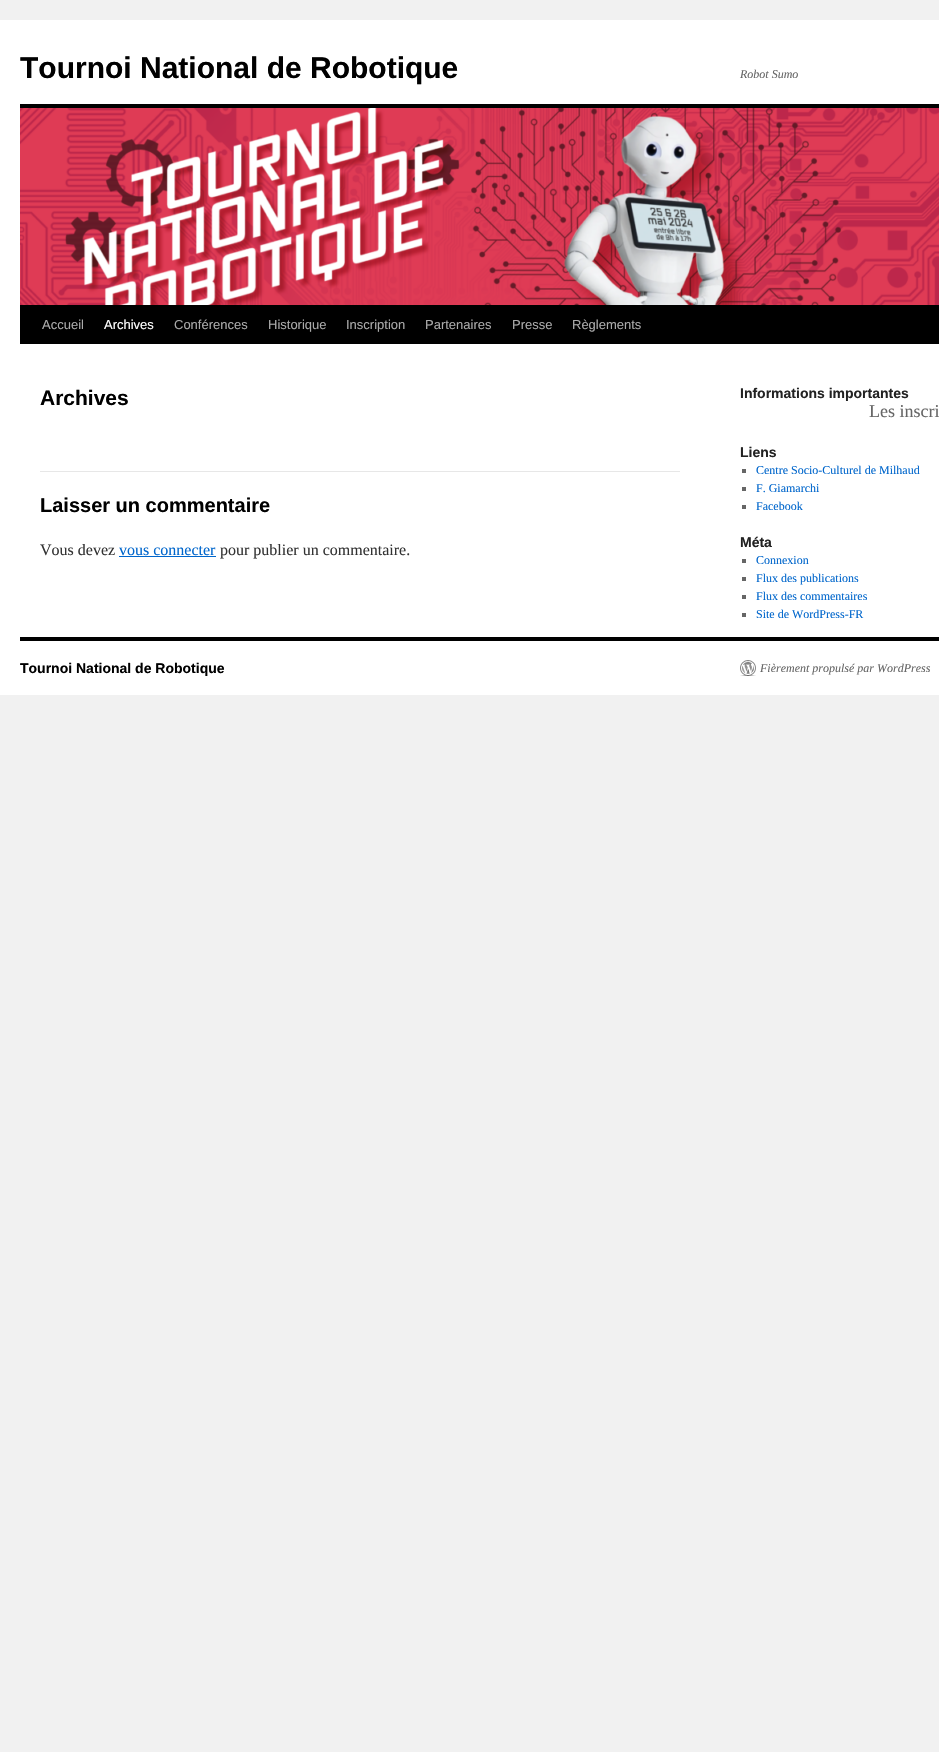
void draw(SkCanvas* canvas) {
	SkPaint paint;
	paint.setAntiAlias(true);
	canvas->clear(0xfff1f1f1);
	paint.setColor(0xffffffff);
	canvas->drawRect(SkRect::MakeXYWH(0, 20, 939, 675), paint);
	SkFont f1(fontMgr->matchFamilyStyle("Liberation Sans", SkFontStyle::Bold()), 30);
	f1.setSubpixel(true);
	paint.setColor(0xff000000);
	canvas->drawString("Tournoi National de Robotique", 20, 78, f1, paint);
	SkFont f2(fontMgr->matchFamilyStyle("Liberation Serif", SkFontStyle::Italic()), 12);
	f2.setSubpixel(true);
	paint.setColor(0xff666666);
	canvas->drawString("Robot Sumo", 740, 78, f2, paint);
	paint.setColor(0xff000000);
	canvas->drawRect(SkRect::MakeXYWH(20, 104, 919, 4), paint);
	canvas->drawRect(SkRect::MakeXYWH(20, 305, 919, 39), paint);
	canvas->drawImageRect(SkImages::DeferredFromEncodedData(SkData::MakeFromFileName("img1.png")), SkRect::MakeXYWH(20, 108, 919, 197), SkSamplingOptions());
	SkFont f3(fontMgr->matchFamilyStyle("Liberation Sans", SkFontStyle::Normal()), 13);
	f3.setSubpixel(true);
	paint.setColor(0xffaaaaaa);
	canvas->drawString("Accueil", 42, 329, f3, paint);
	paint.setColor(0xffffffff);
	canvas->drawString("Archives", 104, 329, f3, paint);
	paint.setColor(0xffaaaaaa);
	canvas->drawString("Conférences", 174, 329, f3, paint);
	canvas->drawString("Historique", 268, 329, f3, paint);
	canvas->drawString("Inscription", 346, 329, f3, paint);
	canvas->drawString("Partenaires", 425, 329, f3, paint);
	canvas->drawString("Presse", 512, 329, f3, paint);
	canvas->drawString("Règlements", 572, 329, f3, paint);
	SkFont f4(fontMgr->matchFamilyStyle("Liberation Sans", SkFontStyle::Bold()), 21);
	f4.setSubpixel(true);
	paint.setColor(0xff000000);
	canvas->drawString("Archives", 40, 405, f4, paint);
	paint.setColor(0xffe7e7e7);
	canvas->drawRect(SkRect::MakeXYWH(40, 471, 640, 1), paint);
	SkFont f5(fontMgr->matchFamilyStyle("Liberation Sans", SkFontStyle::Bold()), 20);
	f5.setSubpixel(true);
	paint.setColor(0xff000000);
	canvas->drawString("Laisser un commentaire", 40, 512, f5, paint);
	SkFont f6(fontMgr->matchFamilyStyle("Liberation Serif", SkFontStyle::Normal()), 16);
	f6.setSubpixel(true);
	paint.setColor(0xff333333);
	canvas->drawString("Vous devez", 40, 555, f6, paint);
	paint.setColor(0xff0066cc);
	canvas->drawString("vous connecter", 119, 555, f6, paint);
	canvas->drawRect(SkRect::MakeXYWH(119, 556, 97, 1), paint);
	paint.setColor(0xff333333);
	canvas->drawString("pour publier un commentaire.", 220, 555, f6, paint);
	SkFont f7(fontMgr->matchFamilyStyle("Liberation Sans", SkFontStyle::Bold()), 14);
	f7.setSubpixel(true);
	paint.setColor(0xff222222);
	canvas->drawString("Informations importantes", 740, 398, f7, paint);
	SkFont f8(fontMgr->matchFamilyStyle("Liberation Serif", SkFontStyle::Normal()), 18);
	f8.setSubpixel(true);
	paint.setColor(0xff666666);
	canvas->drawString("Les inscri", 869, 417, f8, paint);
	paint.setColor(0xff222222);
	canvas->drawString("Liens", 740, 457, f7, paint);
	paint.setColor(0xff666666);
	canvas->drawRect(SkRect::MakeXYWH(742, 469, 4, 4), paint);
	SkFont f9(fontMgr->matchFamilyStyle("Liberation Serif", SkFontStyle::Normal()), 12);
	f9.setSubpixel(true);
	paint.setColor(0xff0066cc);
	canvas->drawString("Centre Socio-Culturel de Milhaud", 756, 474, f9, paint);
	paint.setColor(0xff666666);
	canvas->drawRect(SkRect::MakeXYWH(742, 487, 4, 4), paint);
	paint.setColor(0xff0066cc);
	canvas->drawString("F. Giamarchi", 756, 492, f9, paint);
	paint.setColor(0xff666666);
	canvas->drawRect(SkRect::MakeXYWH(742, 505, 4, 4), paint);
	paint.setColor(0xff0066cc);
	canvas->drawString("Facebook", 756, 510, f9, paint);
	paint.setColor(0xff222222);
	canvas->drawString("Méta", 740, 547, f7, paint);
	paint.setColor(0xff666666);
	canvas->drawRect(SkRect::MakeXYWH(742, 559, 4, 4), paint);
	paint.setColor(0xff0066cc);
	canvas->drawString("Connexion", 756, 564, f9, paint);
	paint.setColor(0xff666666);
	canvas->drawRect(SkRect::MakeXYWH(742, 577, 4, 4), paint);
	paint.setColor(0xff0066cc);
	canvas->drawString("Flux des publications", 756, 582, f9, paint);
	paint.setColor(0xff666666);
	canvas->drawRect(SkRect::MakeXYWH(742, 595, 4, 4), paint);
	paint.setColor(0xff0066cc);
	canvas->drawString("Flux des commentaires", 756, 600, f9, paint);
	paint.setColor(0xff666666);
	canvas->drawRect(SkRect::MakeXYWH(742, 613, 4, 4), paint);
	paint.setColor(0xff0066cc);
	canvas->drawString("Site de WordPress-FR", 756, 618, f9, paint);
	paint.setColor(0xff000000);
	canvas->drawRect(SkRect::MakeXYWH(20, 637, 919, 4), paint);
	canvas->drawString("Tournoi National de Robotique", 20, 673, f7, paint);
	canvas->drawImageRect(SkImages::DeferredFromEncodedData(SkData::MakeFromFileName("img2.png")), SkRect::MakeXYWH(740, 660, 16, 16), SkSamplingOptions());
	paint.setColor(0xff666666);
	canvas->drawString("Fièrement propulsé par WordPress", 760, 672, f2, paint);
}
